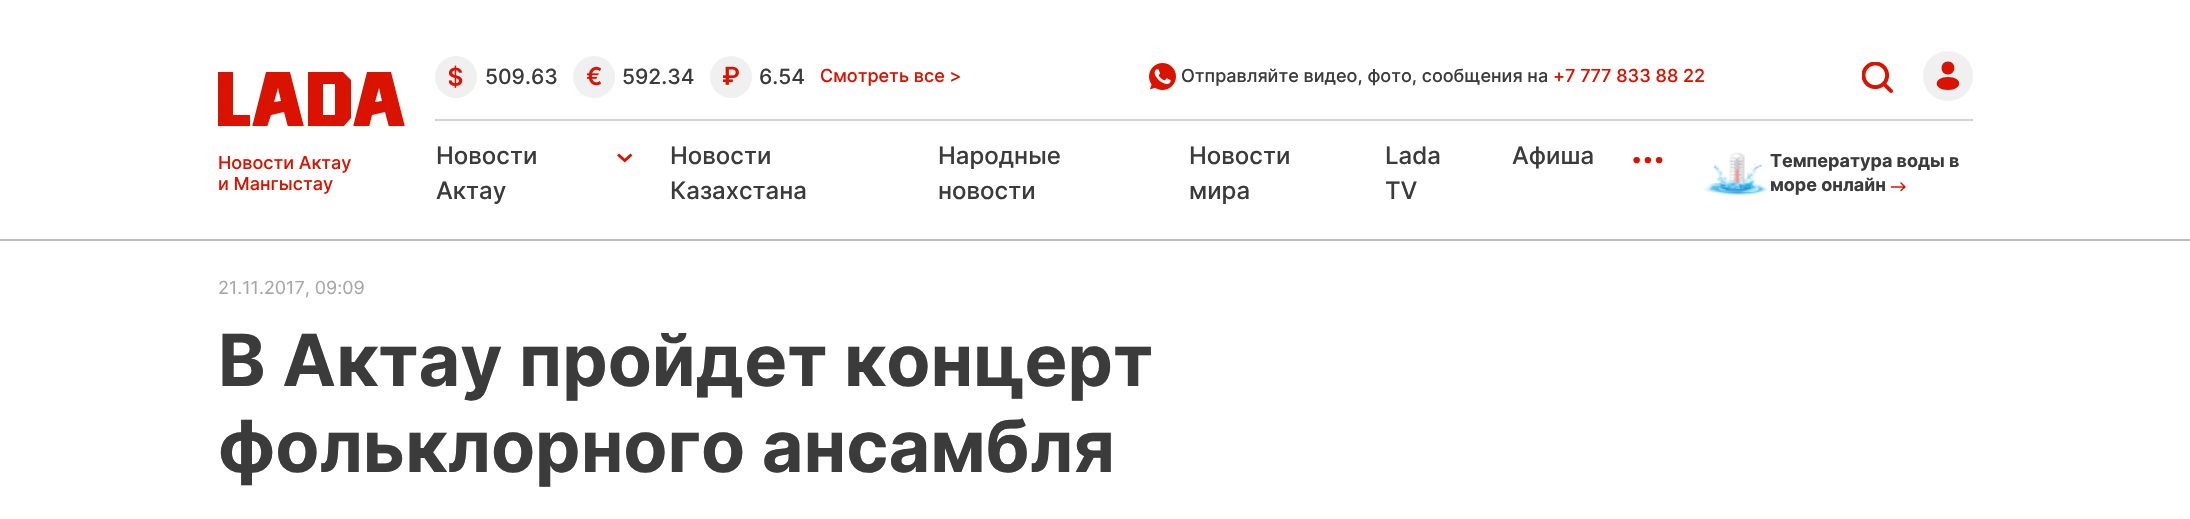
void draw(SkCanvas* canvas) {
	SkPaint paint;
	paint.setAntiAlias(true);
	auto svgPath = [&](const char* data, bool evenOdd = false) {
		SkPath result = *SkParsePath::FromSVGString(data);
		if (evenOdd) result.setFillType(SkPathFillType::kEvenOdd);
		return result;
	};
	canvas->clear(0xffffffff);
	paint.setColor(0xffbebebe);
	canvas->drawRect(SkRect::MakeXYWH(0, 239, 2190, 2), paint);
	canvas->save();
	canvas->clipRect(SkRect::MakeXYWH(218, 72, 187, 54));
	paint.setColor(0xffda1200);
	canvas->drawPath(svgPath("M218 72H233V115H250V127H218ZM308 72H343L351 80V118L343 127H308ZM323 115H335V84H323ZM290 72H266L252 127H267L271 115L284 112L288 127H304ZM274 102L278 88L281 101ZM367 72H391L405 127H389L385 112L372 115L369 127H353ZM379 88L375 102L382 101Z", true), paint);
	canvas->restore();
	SkFont f1(fontMgr->matchFamilyStyle("Inter", SkFontStyle(500, SkFontStyle::kNormal_Width, SkFontStyle::kUpright_Slant)), 18);
	f1.setSubpixel(true);
	canvas->drawString("Новости Актау", 218, 169, f1, paint);
	canvas->drawString("и Мангыстау", 218, 190, f1, paint);
	paint.setColor(0xffd2d2d2);
	canvas->drawRect(SkRect::MakeXYWH(435, 119, 1538, 2), paint);
	paint.setColor(0xfff0f0f0);
	canvas->drawCircle(456, 77, 21, paint);
	canvas->drawImageRect(SkImages::DeferredFromEncodedData(SkData::MakeFromFileName("img1.png")), SkRect::MakeXYWH(449, 65, 14, 23), SkSamplingOptions());
	SkFont f2(fontMgr->matchFamilyStyle("Inter", SkFontStyle(500, SkFontStyle::kNormal_Width, SkFontStyle::kUpright_Slant)), 21);
	f2.setSubpixel(true);
	paint.setColor(0xff3b3b3b);
	canvas->drawString("509.63", 485, 84, f2, paint);
	paint.setColor(0xfff0f0f0);
	canvas->drawCircle(594, 77, 21, paint);
	canvas->drawImageRect(SkImages::DeferredFromEncodedData(SkData::MakeFromFileName("img2.png")), SkRect::MakeXYWH(587, 66, 14, 20), SkSamplingOptions());
	paint.setColor(0xff3b3b3b);
	canvas->drawString("592.34", 622, 84, f2, paint);
	paint.setColor(0xfff0f0f0);
	canvas->drawCircle(731, 77, 21, paint);
	canvas->drawImageRect(SkImages::DeferredFromEncodedData(SkData::MakeFromFileName("img3.png")), SkRect::MakeXYWH(723, 66, 16, 19), SkSamplingOptions());
	paint.setColor(0xff3b3b3b);
	canvas->drawString("6.54", 759, 84, f2, paint);
	paint.setColor(0xffda1200);
	canvas->drawString("Смотреть все >", 820, 82, f1, paint);
	canvas->drawImageRect(SkImages::DeferredFromEncodedData(SkData::MakeFromFileName("img4.png")), SkRect::MakeXYWH(1149, 63, 27, 27), SkSamplingOptions());
	paint.setColor(0xff3b3b3b);
	canvas->drawString("Отправляйте видео, фото, сообщения на", 1181, 82, f1, paint);
	paint.setColor(0xffda1200);
	canvas->drawString("+7 777 833 88 22", 1553, 82, f1, paint);
	canvas->drawImageRect(SkImages::DeferredFromEncodedData(SkData::MakeFromFileName("img5.png")), SkRect::MakeXYWH(1862, 62, 31, 31), SkSamplingOptions());
	paint.setColor(0xfff0f0f0);
	canvas->drawCircle(1948, 76, 25, paint);
	paint.setColor(0xffda1200);
	canvas->drawPath(svgPath("M1948 74.5C1956.5 74.5 1956.5 61.5 1948 61.5C1939.5 61.5 1939.5 74.5 1948 74.5ZM1948 90C1963 90 1963 77 1948 77C1933 77 1933 90 1948 90Z"), paint);
	SkFont f3(fontMgr->matchFamilyStyle("Inter", SkFontStyle(500, SkFontStyle::kNormal_Width, SkFontStyle::kUpright_Slant)), 24);
	f3.setSubpixel(true);
	paint.setColor(0xff3b3b3b);
	canvas->drawString("Новости", 436, 164, f3, paint);
	canvas->drawImageRect(SkImages::DeferredFromEncodedData(SkData::MakeFromFileName("img6.png")), SkRect::MakeXYWH(617, 153, 16, 10), SkSamplingOptions());
	canvas->drawString("Актау", 436, 199, f3, paint);
	canvas->drawString("Новости", 670, 164, f3, paint);
	canvas->drawString("Казахстана", 670, 199, f3, paint);
	canvas->drawString("Народные", 938, 164, f3, paint);
	canvas->drawString("новости", 938, 199, f3, paint);
	canvas->drawString("Новости", 1189, 164, f3, paint);
	canvas->drawString("мира", 1189, 199, f3, paint);
	canvas->drawString("Lada", 1385, 164, f3, paint);
	canvas->drawString("TV", 1385, 199, f3, paint);
	canvas->drawString("Афиша", 1512, 164, f3, paint);
	SkFont f4(fontMgr->matchFamilyStyle("Inter", SkFontStyle::Bold()), 38);
	f4.setSubpixel(true);
	paint.setColor(0xffda1200);
	canvas->drawString("...", 1631, 163, f4, paint);
	canvas->drawImageRect(SkImages::DeferredFromEncodedData(SkData::MakeFromFileName("img7.png")), SkRect::MakeXYWH(1702, 152, 67, 43), SkSamplingOptions());
	SkFont f5(fontMgr->matchFamilyStyle("Inter", SkFontStyle::Bold()), 18);
	f5.setSubpixel(true);
	paint.setColor(0xff3b3b3b);
	canvas->drawString("Температура воды в", 1770, 167, f5, paint);
	canvas->drawString("море онлайн", 1770, 191, f5, paint);
	paint.setStroke(true);
	paint.setStrokeWidth(1.5);
	paint.setStrokeCap(SkPaint::kRound_Cap);
	paint.setStrokeJoin(SkPaint::kRound_Join);
	paint.setColor(0xffda1200);
	canvas->drawPath(svgPath("M1891.5 187H1905M1905 187L1901 183M1905 187L1901 190.5"), paint);
	SkFont f6(fontMgr->matchFamilyStyle("Inter", SkFontStyle::Normal()), 18);
	f6.setSubpixel(true);
	paint.setStroke(false);
	paint.setColor(0xffa6a6a6);
	canvas->drawString("21.11.2017, 09:09", 218, 294, f6, paint);
	SkFont f7(fontMgr->matchFamilyStyle("Inter", SkFontStyle::Bold()), 72);
	f7.setSubpixel(true);
	paint.setColor(0xff3b3b3b);
	canvas->drawString("В Актау пройдет концерт", 218, 386, f7, paint);
	canvas->drawString("фольклорного ансамбля", 218, 472, f7, paint);
}
